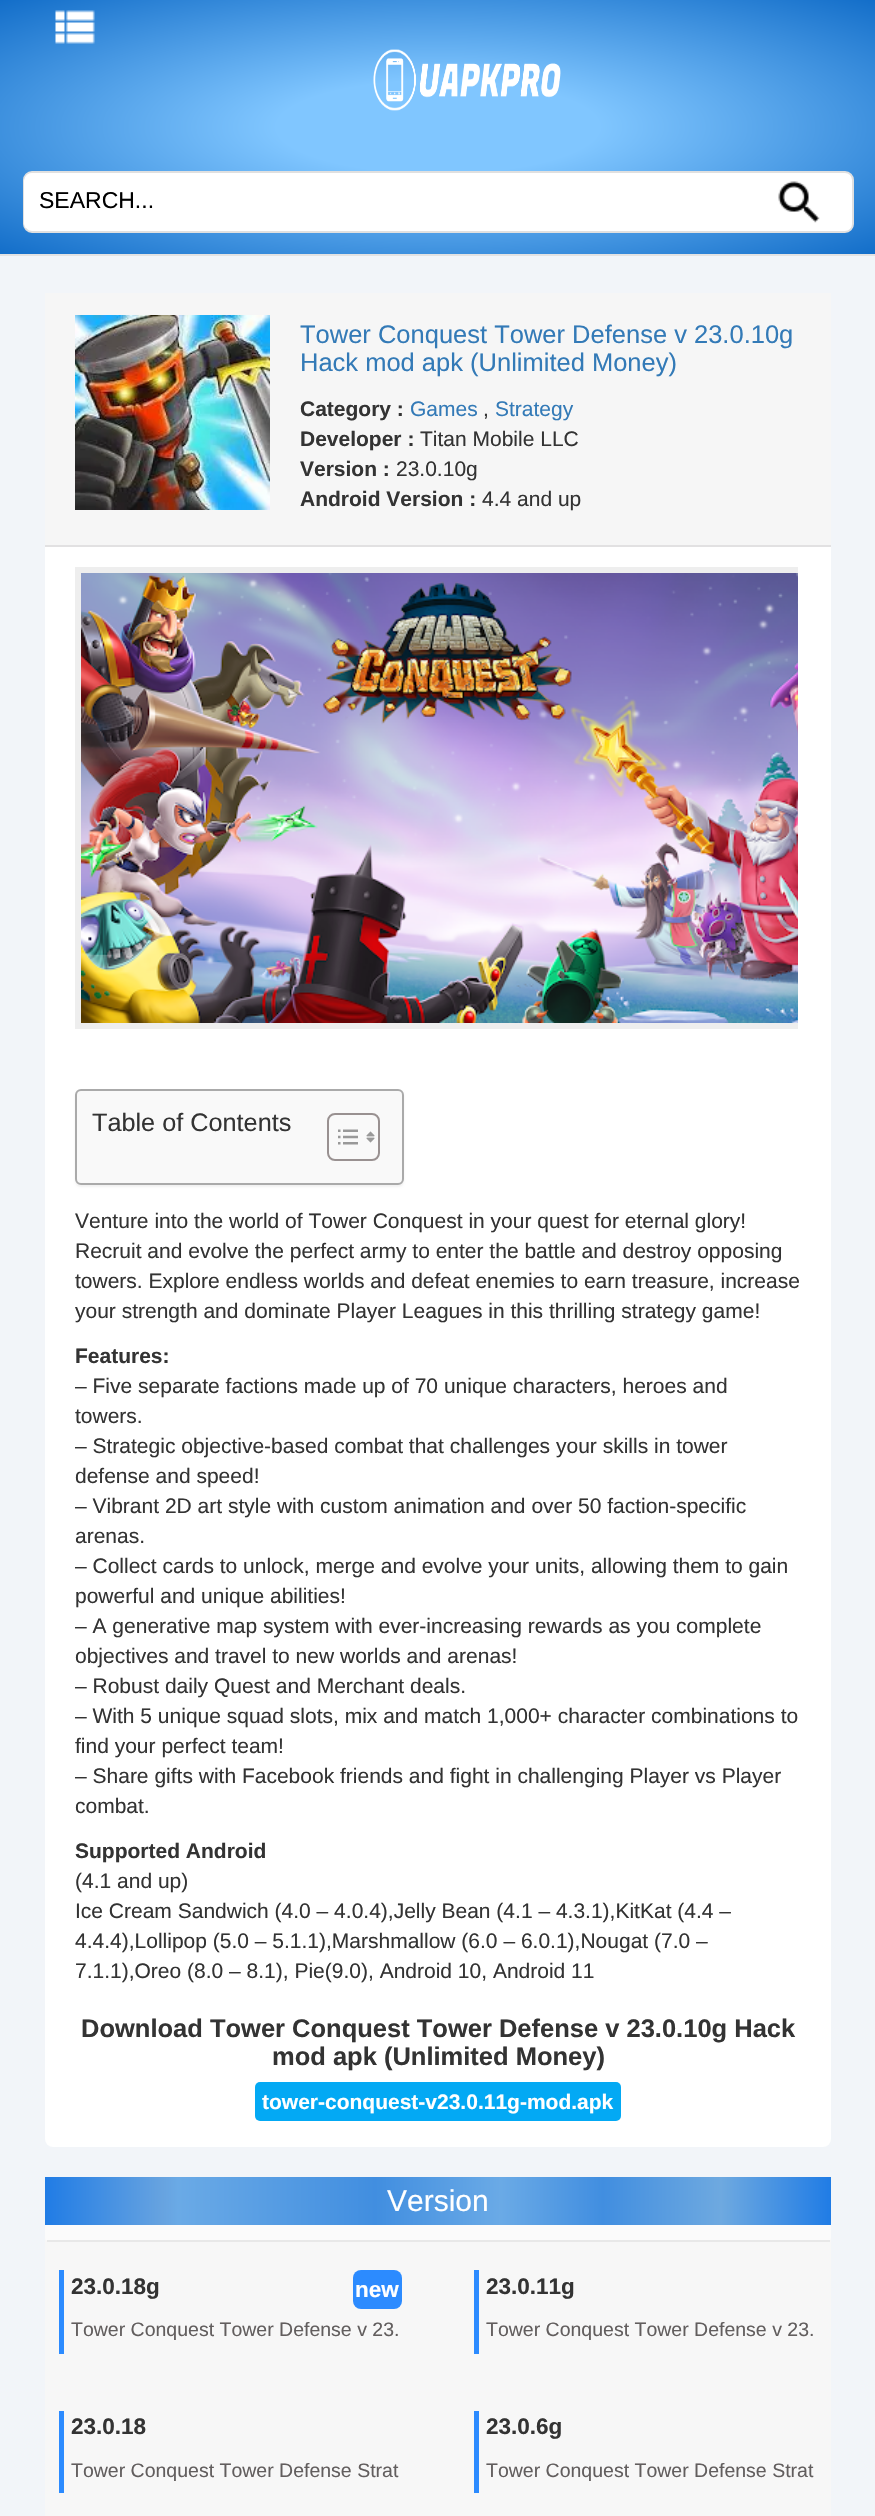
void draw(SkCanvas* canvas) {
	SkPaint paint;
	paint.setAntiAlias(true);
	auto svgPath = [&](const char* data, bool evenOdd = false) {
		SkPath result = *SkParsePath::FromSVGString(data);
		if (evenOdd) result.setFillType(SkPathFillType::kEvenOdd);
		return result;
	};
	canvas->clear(0xfff2f5f9);
	{
		const SkColor colors[] = {0xff80c6ff, 0xff80c6ff, 0xff136ec9};
		const float stops[] = {0, 0.26, 1};
		SkMatrix m = SkMatrix::Translate(438, 127).preScale(619, 179);
		paint.setShader(SkGradientShader::MakeRadial({0, 0}, 1, colors, stops, 3, SkTileMode::kClamp, 0, &m));
		paint.setAlpha(255);
	}
	canvas->drawRect(SkRect::MakeXYWH(0, 0, 875, 254), paint);
	paint.setShader(nullptr);
	paint.setColor(0xffe2e2e3);
	canvas->drawRect(SkRect::MakeXYWH(0, 254, 875, 2), paint);
	canvas->drawImageRect(SkImages::DeferredFromEncodedData(SkData::MakeFromFileName("img1.png")), SkRect::MakeXYWH(55, 10, 40, 34), SkSamplingOptions());
	canvas->drawImageRect(SkImages::DeferredFromEncodedData(SkData::MakeFromFileName("img2.png")), SkRect::MakeXYWH(373, 49, 188, 62), SkSamplingOptions());
	paint.setColor(0xffffffff);
	canvas->drawRoundRect(SkRect::MakeXYWH(24, 172, 829, 60), 8, 8, paint);
	paint.setStroke(true);
	paint.setStrokeWidth(2);
	paint.setColor(0xffe0e0e0);
	canvas->drawRoundRect(SkRect::MakeXYWH(24, 172, 829, 60), 8, 8, paint);
	canvas->save();
	canvas->clipPath(svgPath("M32 173H844C848.5 173 852 176.5 852 181V223C852 227.5 848.5 231 844 231H32C27.5 231 24 227.5 24 223V181C24 176.5 27.5 173 32 173Z"), true);
	paint.setStroke(false);
	paint.setColor(0xffffffff);
	canvas->drawPath(svgPath("M32 173H753V228H24V181C24 176.5 27.5 173 32 173Z"), paint);
	canvas->restore();
	SkFont f1(fontMgr->matchFamilyStyle("Liberation Sans", SkFontStyle::Normal()), 23);
	f1.setSubpixel(true);
	paint.setColor(0xff000000);
	canvas->drawString("SEARCH...", 39, 208, f1, paint);
	canvas->drawImageRect(SkImages::DeferredFromEncodedData(SkData::MakeFromFileName("img3.png")), SkRect::MakeXYWH(778, 181, 42, 42), SkSamplingOptions());
	paint.setColor(0xffffffff);
	canvas->drawRoundRect(SkRect::MakeXYWH(45, 293, 786, 1854), 8, 8, paint);
	paint.setColor(0xfff6f6f6);
	canvas->drawRect(SkRect::MakeXYWH(45, 293, 786, 252), paint);
	paint.setColor(0xffe2e1e2);
	canvas->drawRect(SkRect::MakeXYWH(45, 545, 786, 2), paint);
	canvas->drawImageRect(SkImages::DeferredFromEncodedData(SkData::MakeFromFileName("img4.png")), SkRect::MakeXYWH(75, 315, 195, 195), SkSamplingOptions());
	SkFont f2(fontMgr->matchFamilyStyle("Liberation Sans", SkFontStyle::Normal()), 25.5);
	f2.setSubpixel(true);
	paint.setColor(0xff337ab7);
	canvas->drawString("Tower Conquest Tower Defense v 23.0.10g", 300, 343, f2, paint);
	canvas->drawString("Hack mod apk (Unlimited Money)", 300, 371, f2, paint);
	SkFont f3(fontMgr->matchFamilyStyle("Liberation Sans", SkFontStyle::Bold()), 21);
	f3.setSubpixel(true);
	paint.setColor(0xff333333);
	canvas->drawString("Category :", 300, 416, f3, paint);
	SkFont f4(fontMgr->matchFamilyStyle("Liberation Sans", SkFontStyle::Normal()), 21);
	f4.setSubpixel(true);
	paint.setColor(0xff337ab7);
	canvas->drawString("Games", 410, 416, f4, paint);
	paint.setColor(0xff333333);
	canvas->drawString(",", 483, 416, f4, paint);
	paint.setColor(0xff337ab7);
	canvas->drawString("Strategy", 495, 416, f4, paint);
	paint.setColor(0xff333333);
	canvas->drawString("Developer :", 300, 446, f3, paint);
	canvas->drawString("Titan Mobile LLC", 420, 446, f4, paint);
	canvas->drawString("Version :", 300, 476, f3, paint);
	canvas->drawString("23.0.10g", 396, 476, f4, paint);
	canvas->drawString("Android Version :", 300, 506, f3, paint);
	canvas->drawString("4.4 and up", 482, 506, f4, paint);
	paint.setColor(0xffeeeeee);
	canvas->drawRect(SkRect::MakeXYWH(75, 567, 723, 462), paint);
	canvas->drawImageRect(SkImages::DeferredFromEncodedData(SkData::MakeFromFileName("img5.png")), SkRect::MakeXYWH(81, 573, 717, 450), SkSamplingOptions());
	paint.setColor(0x0d000000);
	paint.setMaskFilter(SkMaskFilter::MakeBlur(kNormal_SkBlurStyle, 1));
	canvas->drawRoundRect(SkRect::MakeXYWH(75, 1091, 329, 96), 6, 6, paint);
	paint.setMaskFilter(nullptr);
	paint.setColor(0xfff9f9f9);
	canvas->drawRoundRect(SkRect::MakeXYWH(76, 1090, 327, 94), 5, 5, paint);
	paint.setStroke(true);
	paint.setColor(0xffaaaaaa);
	canvas->drawRoundRect(SkRect::MakeXYWH(76, 1090, 327, 94), 5, 5, paint);
	SkFont f5(fontMgr->matchFamilyStyle("Liberation Sans", SkFontStyle::Normal()), 25.25);
	f5.setSubpixel(true);
	paint.setStroke(false);
	paint.setColor(0xff333333);
	canvas->drawString("Table of Contents", 92, 1131, f5, paint);
	paint.setStroke(true);
	paint.setColor(0xff999191);
	canvas->drawRoundRect(SkRect::MakeXYWH(328, 1114, 51, 46), 7, 7, paint);
	canvas->drawImageRect(SkImages::DeferredFromEncodedData(SkData::MakeFromFileName("img6.png")), SkRect::MakeXYWH(338, 1129, 20, 16), SkSamplingOptions());
	canvas->drawImageRect(SkImages::DeferredFromEncodedData(SkData::MakeFromFileName("img7.png")), SkRect::MakeXYWH(366, 1131, 9, 12), SkSamplingOptions());
	paint.setStroke(false);
	paint.setColor(0xff333333);
	canvas->drawString("Venture into the world of Tower Conquest in your quest for eternal glory!", 75, 1228, f4, paint);
	canvas->drawString("Recruit and evolve the perfect army to enter the battle and destroy opposing", 75, 1258, f4, paint);
	canvas->drawString("towers. Explore endless worlds and defeat enemies to earn treasure, increase", 75, 1288, f4, paint);
	canvas->drawString("your strength and dominate Player Leagues in this thrilling strategy game!", 75, 1318, f4, paint);
	canvas->drawString("Features:", 75, 1363, f3, paint);
	canvas->drawString("– Five separate factions made up of 70 unique characters, heroes and", 75, 1393, f4, paint);
	canvas->drawString("towers.", 75, 1423, f4, paint);
	canvas->drawString("– Strategic objective-based combat that challenges your skills in tower", 75, 1453, f4, paint);
	canvas->drawString("defense and speed!", 75, 1483, f4, paint);
	canvas->drawString("– Vibrant 2D art style with custom animation and over 50 faction-specific", 75, 1513, f4, paint);
	canvas->drawString("arenas.", 75, 1543, f4, paint);
	canvas->drawString("– Collect cards to unlock, merge and evolve your units, allowing them to gain", 75, 1573, f4, paint);
	canvas->drawString("powerful and unique abilities!", 75, 1603, f4, paint);
	canvas->drawString("– A generative map system with ever-increasing rewards as you complete", 75, 1633, f4, paint);
	canvas->drawString("objectives and travel to new worlds and arenas!", 75, 1663, f4, paint);
	canvas->drawString("– Robust daily Quest and Merchant deals.", 75, 1693, f4, paint);
	canvas->drawString("– With 5 unique squad slots, mix and match 1,000+ character combinations to", 75, 1723, f4, paint);
	canvas->drawString("find your perfect team!", 75, 1753, f4, paint);
	canvas->drawString("– Share gifts with Facebook friends and fight in challenging Player vs Player", 75, 1783, f4, paint);
	canvas->drawString("combat.", 75, 1813, f4, paint);
	canvas->drawString("Supported Android", 75, 1858, f3, paint);
	canvas->drawString("(4.1 and up)", 75, 1888, f4, paint);
	canvas->drawString("Ice Cream Sandwich (4.0 – 4.0.4),Jelly Bean (4.1 – 4.3.1),KitKat (4.4 –", 75, 1918, f4, paint);
	canvas->drawString("4.4.4),Lollipop (5.0 – 5.1.1),Marshmallow (6.0 – 6.0.1),Nougat (7.0 –", 75, 1948, f4, paint);
	canvas->drawString("7.1.1),Oreo (8.0 – 8.1), Pie(9.0), Android 10, Android 11", 75, 1978, f4, paint);
	SkFont f6(fontMgr->matchFamilyStyle("Liberation Sans", SkFontStyle::Bold()), 25.5);
	f6.setSubpixel(true);
	canvas->drawString("Download Tower Conquest Tower Defense v 23.0.10g Hack", 81, 2037, f6, paint);
	canvas->drawString("mod apk (Unlimited Money)", 272, 2065, f6, paint);
	paint.setColor(0xff03a9f4);
	canvas->drawRoundRect(SkRect::MakeXYWH(255, 2082, 366, 39), 5, 5, paint);
	paint.setColor(0xffffffff);
	canvas->drawString("tower-conquest-v23.0.11g-mod.apk", 262, 2109, f3, paint);
	paint.setColor(0xfff7f7f7);
	canvas->drawRect(SkRect::MakeXYWH(45, 2238, 786, 278), paint);
	paint.setColor(0xfffbfbfb);
	canvas->drawRoundRect(SkRect::MakeXYWH(45, 2177, 786, 64), 3, 3, paint);
	paint.setColor(0xffe8e8e8);
	canvas->drawRect(SkRect::MakeXYWH(47, 2240, 783, 2), paint);
	{
		const SkColor colors[] = {0xff207ce5, 0xff67a3e0, 0xff6aaae6, 0xff418ee0, 0xff6aaae6, 0xff418ee0, 0xff6ea9e0, 0xff207ce5};
		const float stops[] = {0, 0.15, 0.17, 0.42, 0.58, 0.71, 0.86, 1};
		const SkPoint ends[] = {{45, 2201}, {831, 2201}};
		paint.setShader(SkGradientShader::MakeLinear(ends, colors, stops, 8, SkTileMode::kClamp));
		paint.setAlpha(255);
	}
	canvas->drawRect(SkRect::MakeXYWH(45, 2177, 786, 48), paint);
	SkFont f7(fontMgr->matchFamilyStyle("Liberation Sans", SkFontStyle::Normal()), 30);
	f7.setSubpixel(true);
	paint.setShader(nullptr);
	paint.setColor(0xffffffff);
	canvas->drawString("Version", 387, 2211, f7, paint);
	paint.setColor(0xff2c8bff);
	canvas->drawRect(SkRect::MakeXYWH(59, 2270, 5, 84), paint);
	SkFont f8(fontMgr->matchFamilyStyle("Liberation Sans", SkFontStyle::Bold()), 22.5);
	f8.setSubpixel(true);
	paint.setColor(0xff333333);
	canvas->drawString("23.0.18g", 71, 2294, f8, paint);
	paint.setColor(0xff2c8bff);
	canvas->drawRoundRect(SkRect::MakeXYWH(353, 2270, 49, 39), 8, 8, paint);
	paint.setColor(0xffffffff);
	canvas->drawString("new", 355, 2297, f8, paint);
	SkFont f9(fontMgr->matchFamilyStyle("Liberation Sans", SkFontStyle::Normal()), 19.5);
	f9.setSubpixel(true);
	paint.setColor(0xff625e5e);
	canvas->drawString("Tower Conquest Tower Defense v 23.", 71, 2336, f9, paint);
	paint.setColor(0xff2c8bff);
	canvas->drawRect(SkRect::MakeXYWH(474, 2270, 5, 84), paint);
	paint.setColor(0xff333333);
	canvas->drawString("23.0.11g", 486, 2294, f8, paint);
	paint.setColor(0xff625e5e);
	canvas->drawString("Tower Conquest Tower Defense v 23.", 486, 2336, f9, paint);
	paint.setColor(0xff2c8bff);
	canvas->drawRect(SkRect::MakeXYWH(59, 2411, 5, 82), paint);
	paint.setColor(0xff333333);
	canvas->drawString("23.0.18", 71, 2434, f8, paint);
	paint.setColor(0xff625e5e);
	canvas->drawString("Tower Conquest Tower Defense Strat", 71, 2477, f9, paint);
	paint.setColor(0xff2c8bff);
	canvas->drawRect(SkRect::MakeXYWH(474, 2411, 5, 82), paint);
	paint.setColor(0xff333333);
	canvas->drawString("23.0.6g", 486, 2434, f8, paint);
	paint.setColor(0xff625e5e);
	canvas->drawString("Tower Conquest Tower Defense Strat", 486, 2477, f9, paint);
}
